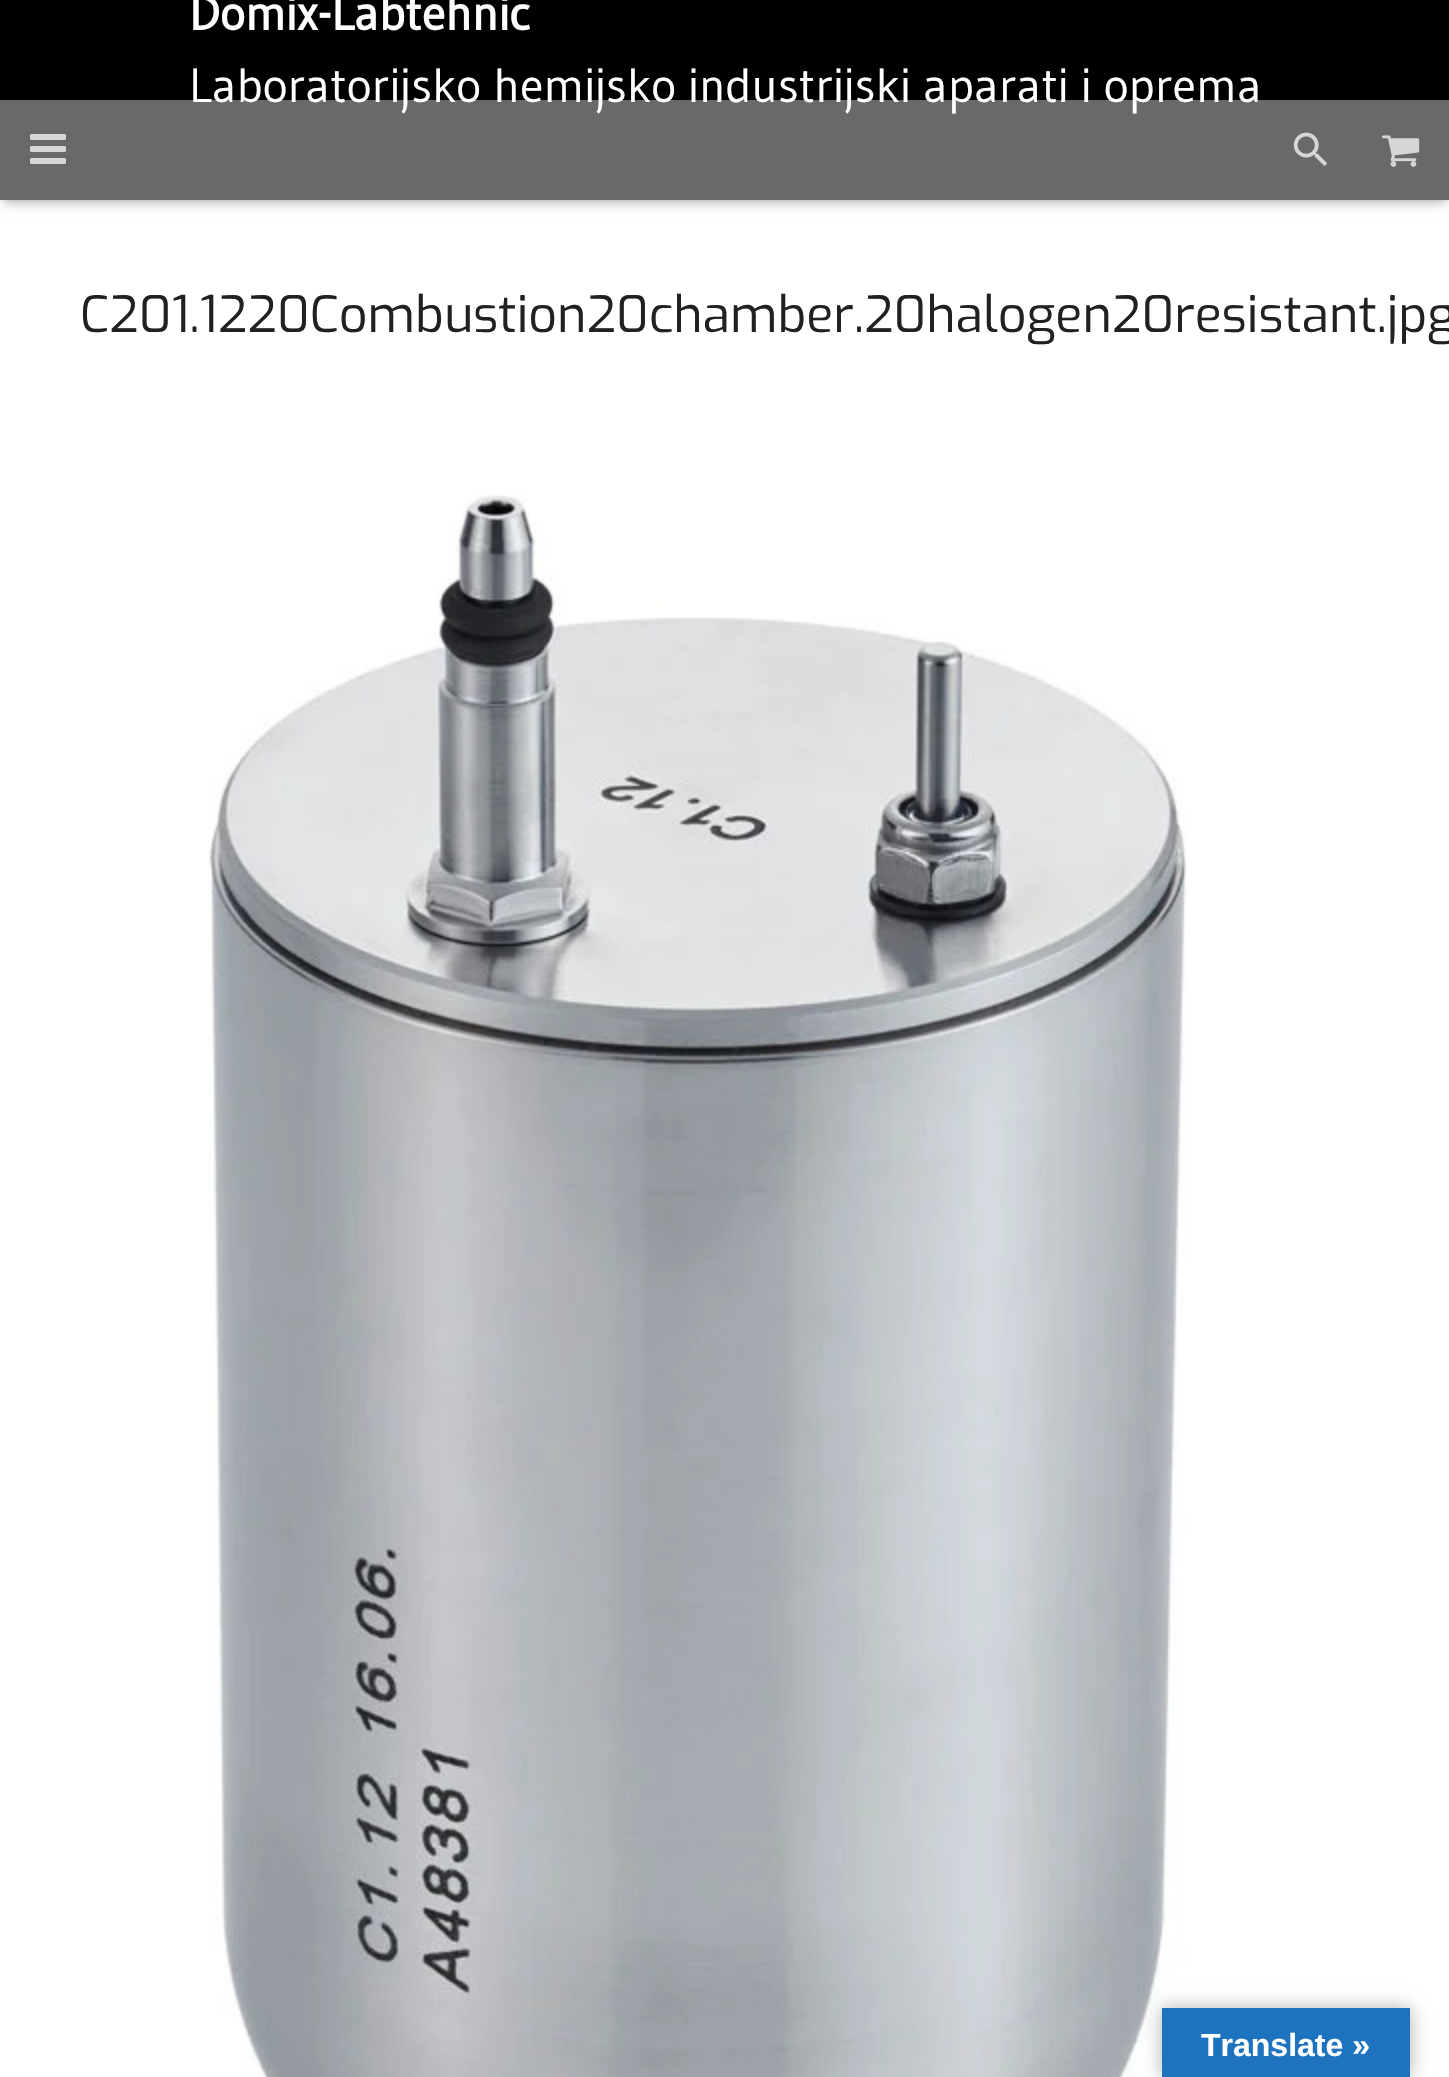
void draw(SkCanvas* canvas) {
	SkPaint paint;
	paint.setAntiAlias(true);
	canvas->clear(0xffffffff);
	paint.setColor(0xff000000);
	canvas->drawRect(SkRect::MakeXYWH(0, 0, 1449, 100), paint);
	SkFont f1(fontMgr->matchFamilyStyle("Gudea", SkFontStyle::Bold()), 48);
	f1.setSubpixel(true);
	paint.setColor(0xffffffff);
	canvas->drawString("Domix-Labtehnic", 189, 30, f1, paint);
	paint.setColor(0x0d000000);
	paint.setMaskFilter(SkMaskFilter::MakeBlur(kNormal_SkBlurStyle, 1));
	canvas->drawRect(SkRect::MakeXYWH(2, 106, 1446, 96), paint);
	paint.setMaskFilter(nullptr);
	paint.setColor(0x38000000);
	paint.setMaskFilter(SkMaskFilter::MakeBlur(kNormal_SkBlurStyle, 5));
	canvas->drawRect(SkRect::MakeXYWH(4, 112, 1442, 92), paint);
	paint.setMaskFilter(nullptr);
	paint.setColor(0xff696969);
	canvas->drawRect(SkRect::MakeXYWH(0, 100, 1449, 100), paint);
	SkFont f2(fontMgr->matchFamilyStyle("Gudea", SkFontStyle::Normal()), 48);
	f2.setSubpixel(true);
	paint.setColor(0xffffffff);
	canvas->drawString("Laboratorijsko hemijsko industrijski aparati i oprema", 189, 102, f2, paint);
	canvas->drawImageRect(SkImages::DeferredFromEncodedData(SkData::MakeFromFileName("img1.png")), SkRect::MakeXYWH(30, 134, 36, 30), SkSamplingOptions());
	canvas->drawImageRect(SkImages::DeferredFromEncodedData(SkData::MakeFromFileName("img2.png")), SkRect::MakeXYWH(1293, 132, 35, 34), SkSamplingOptions());
	canvas->drawImageRect(SkImages::DeferredFromEncodedData(SkData::MakeFromFileName("img3.png")), SkRect::MakeXYWH(1382, 135, 38, 32), SkSamplingOptions());
	SkFont f3(fontMgr->matchFamilyStyle("Exo", SkFontStyle::Normal()), 50);
	f3.setSubpixel(true);
	paint.setColor(0xff212121);
	canvas->drawString("C201.1220Combustion20chamber.20halogen20resistant.jpg", 80, 332, f3, paint);
	canvas->drawImageRect(SkImages::DeferredFromEncodedData(SkData::MakeFromFileName("img4.png")), SkRect::MakeXYWH(208, 494, 980, 1583), SkSamplingOptions());
	paint.setColor(0x4d000000);
	paint.setMaskFilter(SkMaskFilter::MakeBlur(kNormal_SkBlurStyle, 9));
	canvas->drawRect(SkRect::MakeXYWH(1162, 2008, 248, 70), paint);
	paint.setMaskFilter(nullptr);
	paint.setColor(0xff1e73be);
	canvas->drawRect(SkRect::MakeXYWH(1162, 2008, 248, 69), paint);
	SkFont f4(fontMgr->matchFamilyStyle("Liberation Sans", SkFontStyle::Bold()), 32);
	f4.setSubpixel(true);
	paint.setColor(0xffffffff);
	canvas->drawString("Translate »", 1201, 2056, f4, paint);
}
